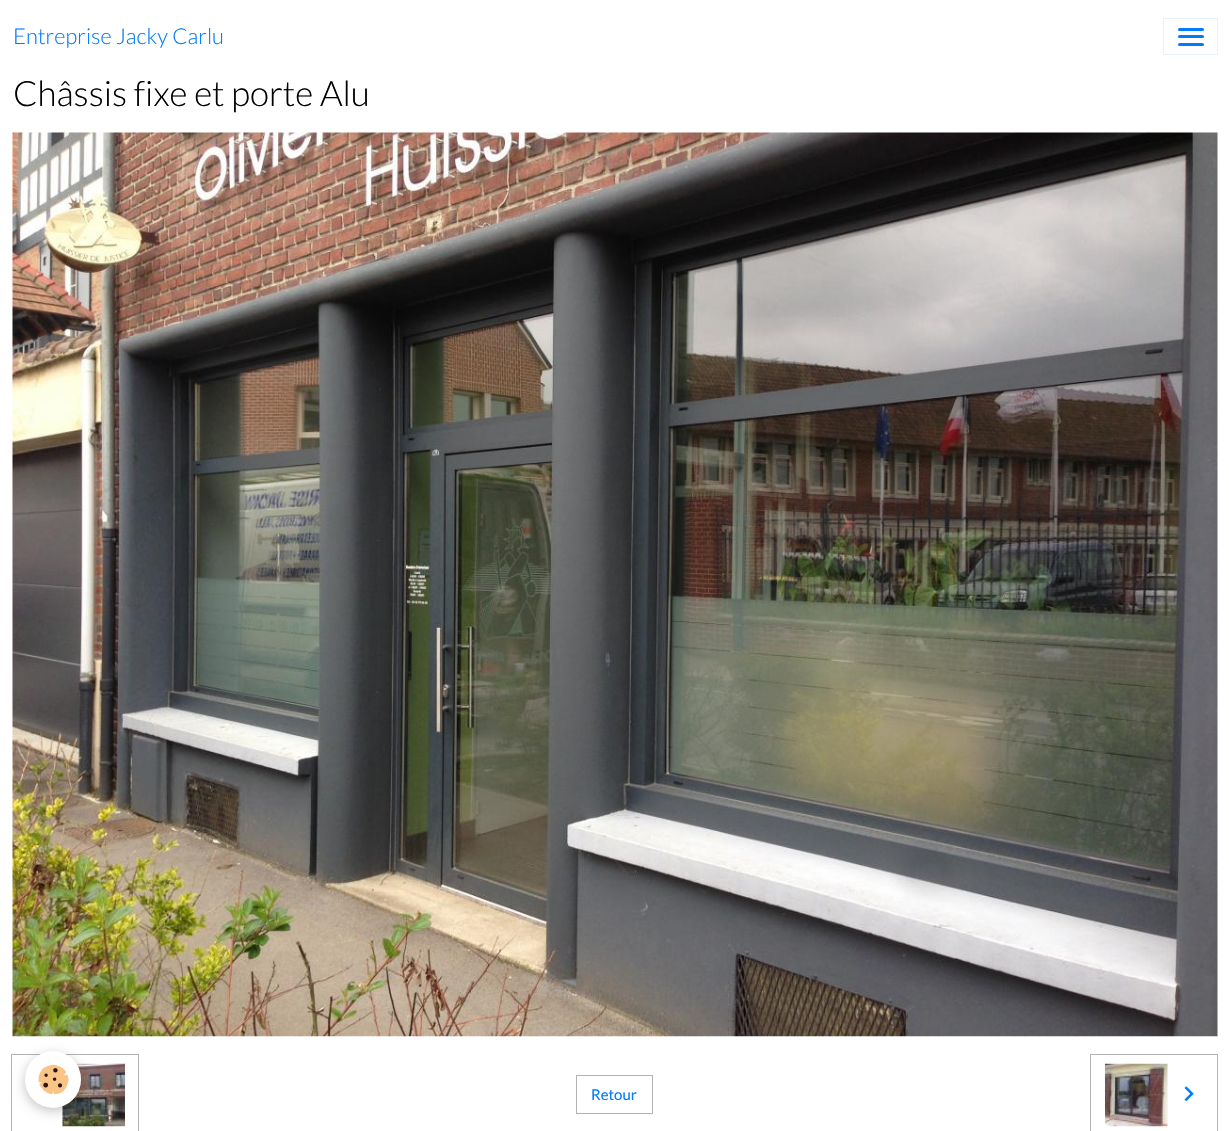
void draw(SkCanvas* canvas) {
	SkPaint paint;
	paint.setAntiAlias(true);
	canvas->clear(0xffffffff);
	SkFont f1(fontMgr->matchFamilyStyle("Lato", SkFontStyle(300, SkFontStyle::kNormal_Width, SkFontStyle::kUpright_Slant)), 21.9);
	f1.setSubpixel(true);
	paint.setColor(0xff007bff);
	canvas->drawString("Entreprise Jacky Carlu", 13, 44, f1, paint);
	paint.setStroke(true);
	paint.setStrokeWidth(1);
	paint.setColor(0xffe6f2ff);
	canvas->drawRect(SkRect::MakeXYWH(1163.5, 18.5, 54, 36), paint);
	paint.setStroke(false);
	paint.setColor(0xff007bff);
	canvas->drawRoundRect(SkRect::MakeXYWH(1178, 28, 26, 3), 1.5, 1.5, paint);
	canvas->drawRoundRect(SkRect::MakeXYWH(1178, 35, 26, 3), 1.5, 1.5, paint);
	canvas->drawRoundRect(SkRect::MakeXYWH(1178, 43, 26, 3), 1.5, 1.5, paint);
	SkFont f2(fontMgr->matchFamilyStyle("Lato", SkFontStyle(300, SkFontStyle::kNormal_Width, SkFontStyle::kUpright_Slant)), 35);
	f2.setSubpixel(true);
	paint.setColor(0xff000000);
	canvas->drawString("Châssis fixe et porte Alu", 13, 106, f2, paint);
	canvas->drawImageRect(SkImages::DeferredFromEncodedData(SkData::MakeFromFileName("img1.png")), SkRect::MakeXYWH(12, 132, 1206, 905), SkSamplingOptions());
	paint.setStroke(true);
	paint.setColor(0xffb3b3b3);
	canvas->drawRect(SkRect::MakeXYWH(11.5, 1054.5, 127, 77), paint);
	canvas->drawImageRect(SkImages::DeferredFromEncodedData(SkData::MakeFromFileName("img2.png")), SkRect::MakeXYWH(62, 1063, 63, 64), SkSamplingOptions());
	canvas->drawRect(SkRect::MakeXYWH(576.5, 1075.5, 76, 38), paint);
	SkFont f3(fontMgr->matchFamilyStyle("Lato", SkFontStyle::Normal()), 15);
	f3.setSubpixel(true);
	paint.setStroke(false);
	paint.setColor(0xff007bff);
	canvas->drawString("Retour", 591, 1100, f3, paint);
	paint.setStroke(true);
	paint.setColor(0xffb3b3b3);
	canvas->drawRect(SkRect::MakeXYWH(1090.5, 1054.5, 127, 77), paint);
	canvas->drawImageRect(SkImages::DeferredFromEncodedData(SkData::MakeFromFileName("img3.png")), SkRect::MakeXYWH(1105, 1063, 63, 64), SkSamplingOptions());
	canvas->drawImageRect(SkImages::DeferredFromEncodedData(SkData::MakeFromFileName("img4.png")), SkRect::MakeXYWH(1184, 1086, 10, 16), SkSamplingOptions());
	paint.setStroke(false);
	paint.setColor(0x3d000000);
	paint.setMaskFilter(SkMaskFilter::MakeBlur(kNormal_SkBlurStyle, 6));
	canvas->drawRoundRect(SkRect::MakeXYWH(25, 1055, 56, 56), 28, 28, paint);
	paint.setMaskFilter(nullptr);
	paint.setColor(0xffffffff);
	canvas->drawRoundRect(SkRect::MakeXYWH(25, 1051, 56, 57), 28, 28, paint);
	canvas->drawImageRect(SkImages::DeferredFromEncodedData(SkData::MakeFromFileName("img5.png")), SkRect::MakeXYWH(38, 1064, 31, 31), SkSamplingOptions());
}
